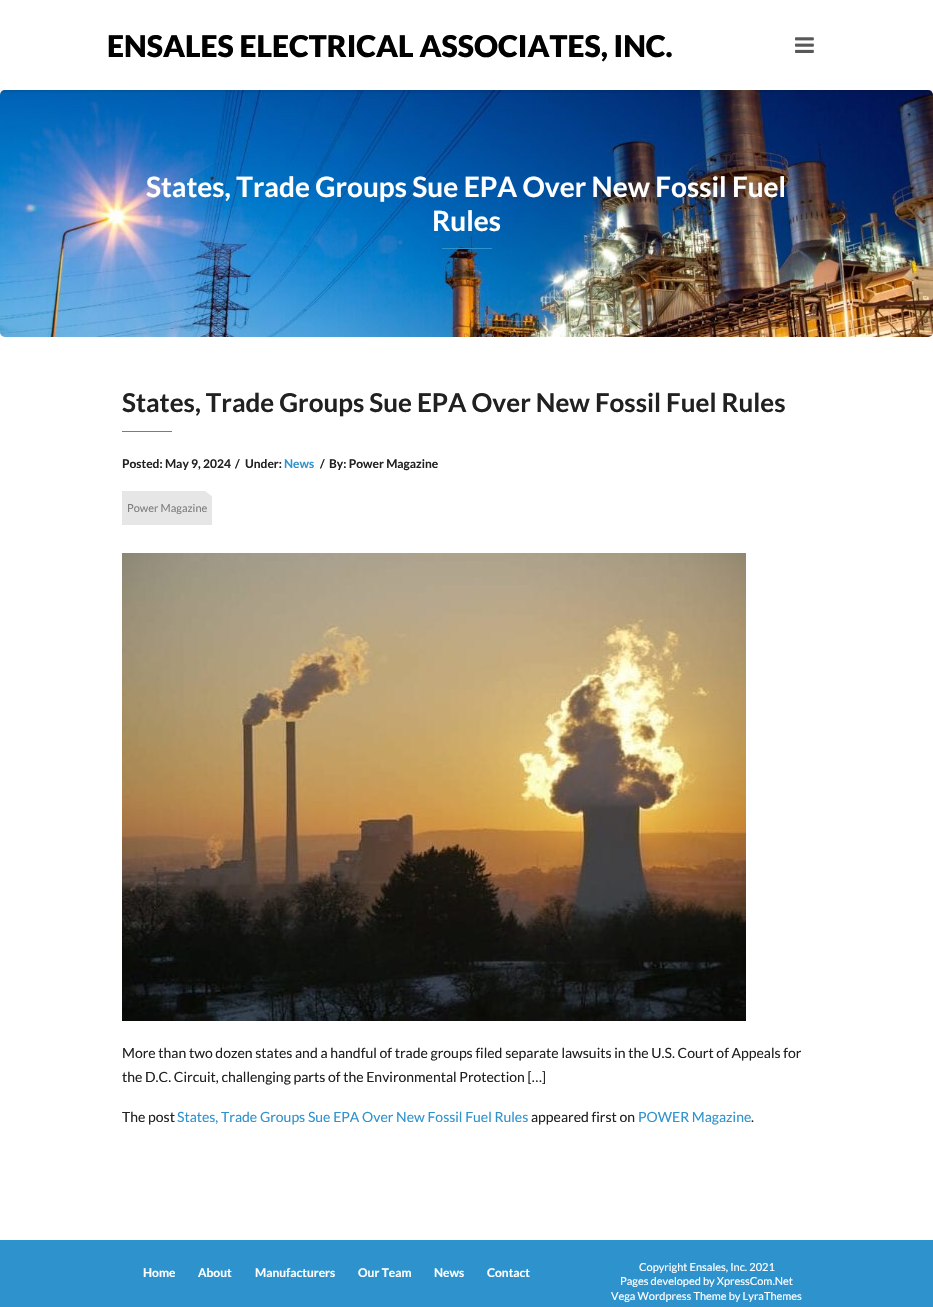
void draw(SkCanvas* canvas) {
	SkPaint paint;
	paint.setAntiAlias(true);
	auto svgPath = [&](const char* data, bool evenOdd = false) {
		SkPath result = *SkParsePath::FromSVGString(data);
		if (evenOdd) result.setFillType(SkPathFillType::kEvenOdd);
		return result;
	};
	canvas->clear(0xffffffff);
	canvas->drawImageRect(SkImages::DeferredFromEncodedData(SkData::MakeFromFileName("img2.png")), SkRect::MakeXYWH(0, 90, 933, 247), SkSamplingOptions());
	canvas->save();
	canvas->clipRect(SkRect::MakeXYWH(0, 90, 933, 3));
	paint.setColor(0x33000000);
	paint.setMaskFilter(SkMaskFilter::MakeBlur(kNormal_SkBlurStyle, 2.5));
	canvas->drawRect(SkRect::MakeXYWH(0, 0, 933, 90), paint);
	paint.setMaskFilter(nullptr);
	canvas->restore();
	SkFont f1(fontMgr->matchFamilyStyle("Lato", SkFontStyle(900, SkFontStyle::kNormal_Width, SkFontStyle::kUpright_Slant)), 30);
	f1.setSubpixel(true);
	paint.setColor(0xff010101);
	canvas->drawString("ENSALES ELECTRICAL ASSOCIATES, INC.", 107, 57, f1, paint);
	canvas->drawImageRect(SkImages::DeferredFromEncodedData(SkData::MakeFromFileName("img1.png")), SkRect::MakeXYWH(795, 37, 19, 16), SkSamplingOptions());
	SkFont f2(fontMgr->matchFamilyStyle("Lato", SkFontStyle::Bold()), 28);
	f2.setSubpixel(true);
	paint.setColor(0xffffffff);
	canvas->drawString("States, Trade Groups Sue EPA Over New Fossil Fuel", 146, 197, f2, paint);
	canvas->drawString("Rules", 432, 231, f2, paint);
	paint.setColor(0xff2e93cd);
	canvas->drawRect(SkRect::MakeXYWH(442, 248, 50, 1), paint);
	SkFont f3(fontMgr->matchFamilyStyle("Lato", SkFontStyle::Bold()), 26);
	f3.setSubpixel(true);
	paint.setColor(0xff212121);
	canvas->drawString("States, Trade Groups Sue EPA Over New Fossil Fuel Rules", 122, 412, f3, paint);
	paint.setColor(0xff2e93cd);
	canvas->drawRect(SkRect::MakeXYWH(122, 431, 50, 1), paint);
	SkFont f4(fontMgr->matchFamilyStyle("Lato", SkFontStyle::Bold()), 12);
	f4.setSubpixel(true);
	paint.setColor(0xff212121);
	canvas->drawString("Posted: May 9, 2024", 122, 468, f4, paint);
	canvas->drawString("/", 235, 468, f4, paint);
	canvas->drawString("Under:", 245, 468, f4, paint);
	paint.setColor(0xff2e93cd);
	canvas->drawString("News", 284, 468, f4, paint);
	paint.setColor(0xff212121);
	canvas->drawString("/", 320, 468, f4, paint);
	canvas->drawString("By: Power Magazine", 329, 468, f4, paint);
	paint.setColor(0xffe6e6e6);
	canvas->drawRect(SkRect::MakeXYWH(122, 491, 90, 34), paint);
	paint.setColor(0xffffffff);
	canvas->drawPath(svgPath("M205 491H221L213 497Z"), paint);
	SkFont f5(fontMgr->matchFamilyStyle("Lato", SkFontStyle::Normal()), 11);
	f5.setSubpixel(true);
	paint.setColor(0xff7e7e7e);
	canvas->drawString("Power Magazine", 127, 512, f5, paint);
	canvas->drawImageRect(SkImages::DeferredFromEncodedData(SkData::MakeFromFileName("img3.png")), SkRect::MakeXYWH(122, 553, 624, 468), SkSamplingOptions());
	SkFont f6(fontMgr->matchFamilyStyle("Lato", SkFontStyle::Normal()), 14);
	f6.setSubpixel(true);
	paint.setColor(0xff212121);
	canvas->drawString("More than two dozen states and a handful of trade groups filed separate lawsuits in the U.S. Court of Appeals for", 122, 1058, f6, paint);
	canvas->drawString("the D.C. Circuit, challenging parts of the Environmental Protection […]", 122, 1082, f6, paint);
	canvas->drawString("The post", 122, 1122, f6, paint);
	paint.setColor(0xff2e93cd);
	canvas->drawString("States, Trade Groups Sue EPA Over New Fossil Fuel Rules", 177, 1122, f6, paint);
	paint.setColor(0xff212121);
	canvas->drawString("appeared first on", 531, 1122, f6, paint);
	paint.setColor(0xff2e93cd);
	canvas->drawString("POWER Magazine", 638, 1122, f6, paint);
	paint.setColor(0xff212121);
	canvas->drawString(".", 751, 1122, f6, paint);
	paint.setColor(0xff2e93cd);
	canvas->drawRect(SkRect::MakeXYWH(0, 1240, 933, 67), paint);
	paint.setColor(0xffffffff);
	canvas->drawString("Home", 143, 1277, f4, paint);
	canvas->drawString("About", 198, 1277, f4, paint);
	canvas->drawString("Manufacturers", 255, 1277, f4, paint);
	canvas->drawString("Our Team", 358, 1277, f4, paint);
	canvas->drawString("News", 434, 1277, f4, paint);
	canvas->drawString("Contact", 487, 1277, f4, paint);
	canvas->drawString("Copyright Ensales, Inc. 2021", 639, 1271, f5, paint);
	canvas->drawString("Pages developed by XpressCom.Net", 620, 1285, f5, paint);
	canvas->drawString("Vega Wordpress Theme by LyraThemes", 611, 1300, f5, paint);
}
